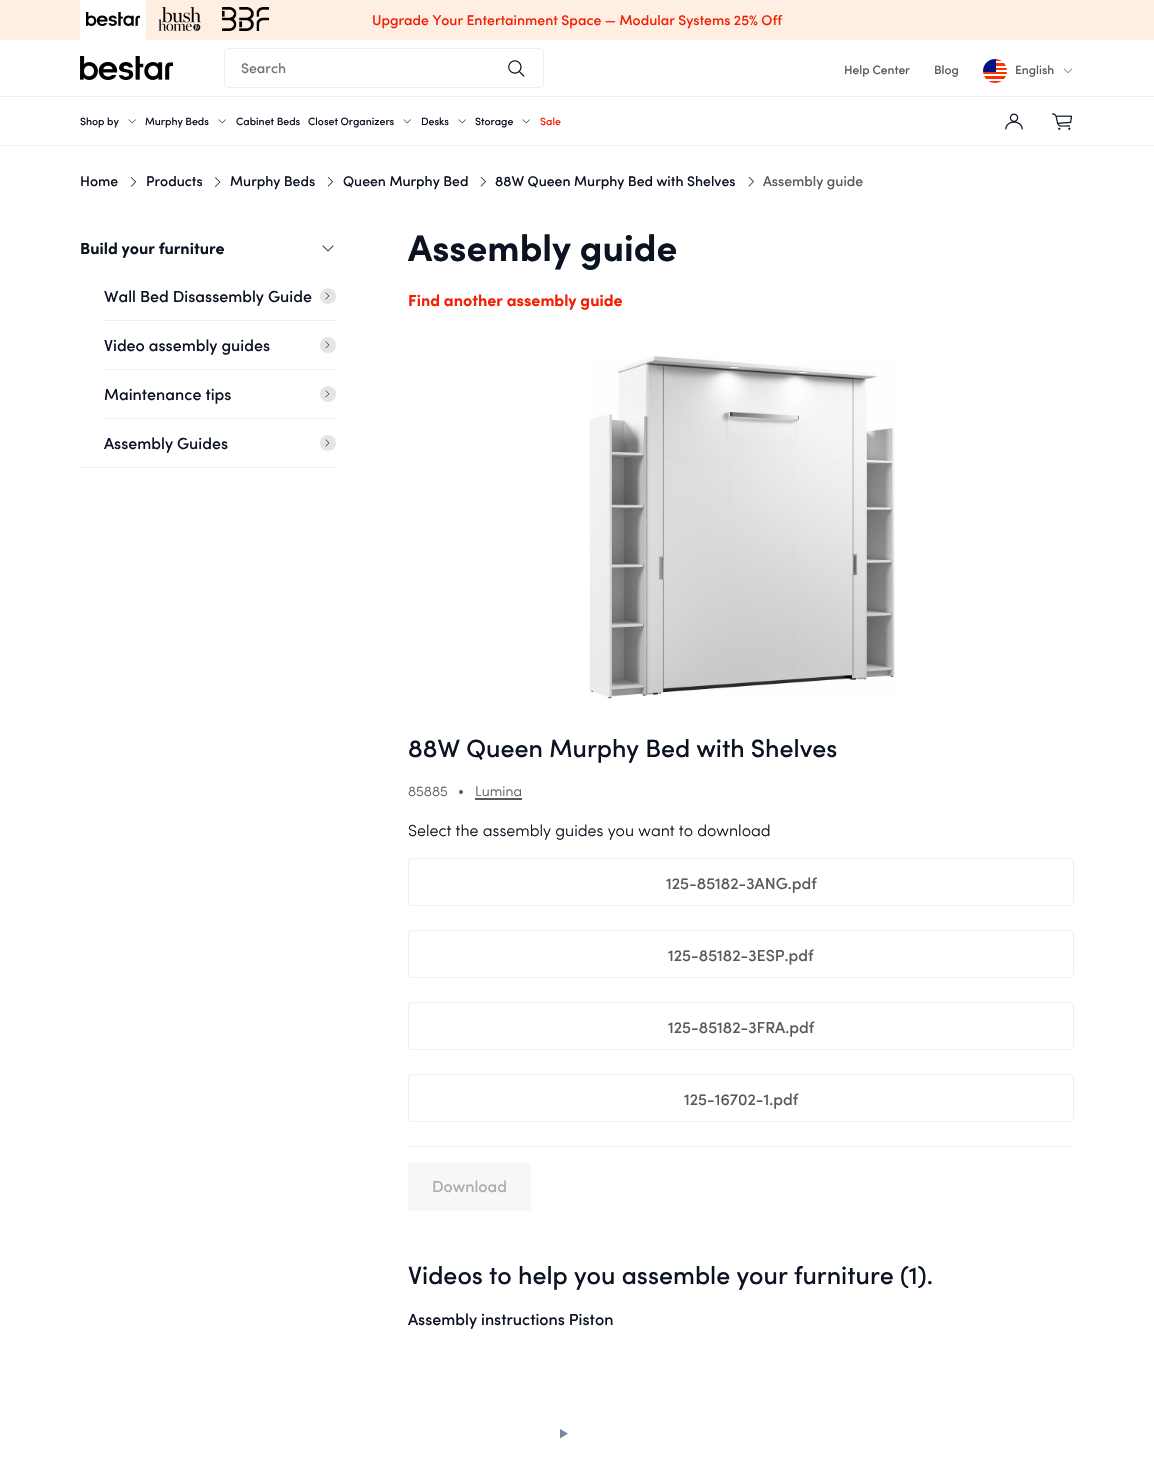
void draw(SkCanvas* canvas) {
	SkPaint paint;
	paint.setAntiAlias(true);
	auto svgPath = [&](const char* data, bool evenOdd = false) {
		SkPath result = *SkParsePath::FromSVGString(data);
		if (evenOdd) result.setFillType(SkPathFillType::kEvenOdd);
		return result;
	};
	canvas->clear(0xffffffff);
	paint.setColor(0xffffeee2);
	canvas->drawRect(SkRect::MakeXYWH(0, 0, 1154, 40), paint);
	paint.setColor(0xffffffff);
	canvas->drawRect(SkRect::MakeXYWH(80, 0, 66, 40), paint);
	canvas->drawImageRect(SkImages::DeferredFromEncodedData(SkData::MakeFromFileName("img1.png")), SkRect::MakeXYWH(86, 12, 54, 14), SkSamplingOptions());
	canvas->drawImageRect(SkImages::DeferredFromEncodedData(SkData::MakeFromFileName("img2.png")), SkRect::MakeXYWH(158, 7, 43, 24), SkSamplingOptions());
	canvas->drawImageRect(SkImages::DeferredFromEncodedData(SkData::MakeFromFileName("img3.png")), SkRect::MakeXYWH(222, 7, 47, 24), SkSamplingOptions());
	SkFont f1(fontMgr->matchFamilyStyle("Sofia", SkFontStyle(500, SkFontStyle::kNormal_Width, SkFontStyle::kUpright_Slant)), 14);
	f1.setSubpixel(true);
	paint.setColor(0xfff41e02);
	canvas->drawString("Upgrade Your Entertainment Space — Modular Systems 25% Off", 372, 25, f1, paint);
	paint.setColor(0xffedf0f0);
	canvas->drawRect(SkRect::MakeXYWH(0, 96, 1154, 1), paint);
	canvas->drawImageRect(SkImages::DeferredFromEncodedData(SkData::MakeFromFileName("img4.png")), SkRect::MakeXYWH(80, 56, 93, 24), SkSamplingOptions());
	paint.setStroke(true);
	paint.setStrokeWidth(1);
	canvas->drawRoundRect(SkRect::MakeXYWH(224.5, 48.5, 319, 39), 3.5, 3.5, paint);
	paint.setStroke(false);
	paint.setColor(0xff757575);
	canvas->drawString("Search", 241, 73, f1, paint);
	canvas->drawImageRect(SkImages::DeferredFromEncodedData(SkData::MakeFromFileName("img5.png")), SkRect::MakeXYWH(508, 60, 17, 17), SkSamplingOptions());
	SkFont f2(fontMgr->matchFamilyStyle("Sofia", SkFontStyle(500, SkFontStyle::kNormal_Width, SkFontStyle::kUpright_Slant)), 12);
	f2.setSubpixel(true);
	paint.setColor(0xff5a5858);
	canvas->drawString("Help Center", 844, 74, f2, paint);
	canvas->drawString("Blog", 934, 74, f2, paint);
	canvas->drawImageRect(SkImages::DeferredFromEncodedData(SkData::MakeFromFileName("img6.png")), SkRect::MakeXYWH(983, 59, 24, 24), SkSamplingOptions());
	canvas->drawString("English", 1015, 74, f2, paint);
	canvas->drawImageRect(SkImages::DeferredFromEncodedData(SkData::MakeFromFileName("img7.png")), SkRect::MakeXYWH(1063, 68, 10, 5), SkSamplingOptions());
	paint.setColor(0xffedf0f0);
	canvas->drawRect(SkRect::MakeXYWH(0, 145, 1154, 1), paint);
	SkFont f3(fontMgr->matchFamilyStyle("Sofia", SkFontStyle(500, SkFontStyle::kNormal_Width, SkFontStyle::kUpright_Slant)), 10.5);
	f3.setSubpixel(true);
	paint.setColor(0xff0b1222);
	canvas->drawString("Shop by", 80, 125, f3, paint);
	canvas->drawImageRect(SkImages::DeferredFromEncodedData(SkData::MakeFromFileName("img8.png")), SkRect::MakeXYWH(128, 119, 8, 5), SkSamplingOptions());
	canvas->drawString("Murphy Beds", 145, 125, f3, paint);
	canvas->drawImageRect(SkImages::DeferredFromEncodedData(SkData::MakeFromFileName("img8.png")), SkRect::MakeXYWH(218, 119, 8, 5), SkSamplingOptions());
	canvas->drawString("Cabinet Beds", 236, 125, f3, paint);
	canvas->drawString("Closet Organizers", 308, 125, f3, paint);
	canvas->drawImageRect(SkImages::DeferredFromEncodedData(SkData::MakeFromFileName("img8.png")), SkRect::MakeXYWH(403, 119, 8, 5), SkSamplingOptions());
	canvas->drawString("Desks", 421, 125, f3, paint);
	canvas->drawImageRect(SkImages::DeferredFromEncodedData(SkData::MakeFromFileName("img8.png")), SkRect::MakeXYWH(458, 119, 8, 5), SkSamplingOptions());
	canvas->drawString("Storage", 475, 125, f3, paint);
	canvas->drawImageRect(SkImages::DeferredFromEncodedData(SkData::MakeFromFileName("img8.png")), SkRect::MakeXYWH(522, 119, 8, 5), SkSamplingOptions());
	paint.setColor(0xfff41e02);
	canvas->drawString("Sale", 540, 125, f3, paint);
	canvas->drawImageRect(SkImages::DeferredFromEncodedData(SkData::MakeFromFileName("img9.png")), SkRect::MakeXYWH(1005, 113, 18, 17), SkSamplingOptions());
	canvas->drawImageRect(SkImages::DeferredFromEncodedData(SkData::MakeFromFileName("img10.png")), SkRect::MakeXYWH(1052, 113, 21, 17), SkSamplingOptions());
	paint.setColor(0xff0b1222);
	canvas->drawString("Home", 80, 186, f1, paint);
	canvas->drawImageRect(SkImages::DeferredFromEncodedData(SkData::MakeFromFileName("img11.png")), SkRect::MakeXYWH(130, 177, 7, 10), SkSamplingOptions());
	canvas->drawString("Products", 146, 186, f1, paint);
	canvas->drawImageRect(SkImages::DeferredFromEncodedData(SkData::MakeFromFileName("img12.png")), SkRect::MakeXYWH(215, 177, 6, 10), SkSamplingOptions());
	canvas->drawString("Murphy Beds", 230, 186, f1, paint);
	canvas->drawImageRect(SkImages::DeferredFromEncodedData(SkData::MakeFromFileName("img13.png")), SkRect::MakeXYWH(327, 176, 6, 11), SkSamplingOptions());
	canvas->drawString("Queen Murphy Bed", 343, 186, f1, paint);
	canvas->drawImageRect(SkImages::DeferredFromEncodedData(SkData::MakeFromFileName("img14.png")), SkRect::MakeXYWH(480, 176, 6, 11), SkSamplingOptions());
	canvas->drawString("88W Queen Murphy Bed with Shelves", 495, 186, f1, paint);
	canvas->drawImageRect(SkImages::DeferredFromEncodedData(SkData::MakeFromFileName("img15.png")), SkRect::MakeXYWH(748, 176, 6, 11), SkSamplingOptions());
	paint.setColor(0xff5a5858);
	canvas->drawString("Assembly guide", 763, 186, f1, paint);
	paint.setColor(0xffedf0f0);
	canvas->drawRect(SkRect::MakeXYWH(80, 467, 256, 1), paint);
	SkFont f4(fontMgr->matchFamilyStyle("Sofia", SkFontStyle::Bold()), 16);
	f4.setSubpixel(true);
	paint.setColor(0xff0b1222);
	canvas->drawString("Build your furniture", 80, 254, f4, paint);
	canvas->drawImageRect(SkImages::DeferredFromEncodedData(SkData::MakeFromFileName("img16.png")), SkRect::MakeXYWH(322, 245, 12, 7), SkSamplingOptions());
	paint.setColor(0xffedf0f0);
	canvas->drawRect(SkRect::MakeXYWH(104, 320, 232, 1), paint);
	SkFont f5(fontMgr->matchFamilyStyle("Sofia", SkFontStyle(500, SkFontStyle::kNormal_Width, SkFontStyle::kUpright_Slant)), 16);
	f5.setSubpixel(true);
	paint.setColor(0xff0b1222);
	canvas->drawString("Wall Bed Disassembly Guide", 104, 302, f5, paint);
	paint.setColor(0xffe5e5e5);
	canvas->drawPath(svgPath("M320 296C320 285.5 336 285.5 336 296C336 306.5 320 306.5 320 296Z"), paint);
	canvas->drawImageRect(SkImages::DeferredFromEncodedData(SkData::MakeFromFileName("img17.png")), SkRect::MakeXYWH(325, 292, 5, 8), SkSamplingOptions());
	paint.setColor(0xffedf0f0);
	canvas->drawRect(SkRect::MakeXYWH(104, 369, 232, 1), paint);
	paint.setColor(0xff0b1222);
	canvas->drawString("Video assembly guides", 104, 351, f5, paint);
	paint.setColor(0xffe5e5e5);
	canvas->drawPath(svgPath("M320 345C320 334.5 336 334.5 336 345C336 355.5 320 355.5 320 345Z"), paint);
	canvas->drawImageRect(SkImages::DeferredFromEncodedData(SkData::MakeFromFileName("img17.png")), SkRect::MakeXYWH(325, 341, 5, 8), SkSamplingOptions());
	paint.setColor(0xffedf0f0);
	canvas->drawRect(SkRect::MakeXYWH(104, 418, 232, 1), paint);
	paint.setColor(0xff0b1222);
	canvas->drawString("Maintenance tips", 104, 400, f5, paint);
	paint.setColor(0xffe5e5e5);
	canvas->drawPath(svgPath("M320 394C320 383.5 336 383.5 336 394C336 404.5 320 404.5 320 394Z"), paint);
	canvas->drawImageRect(SkImages::DeferredFromEncodedData(SkData::MakeFromFileName("img17.png")), SkRect::MakeXYWH(325, 390, 5, 8), SkSamplingOptions());
	paint.setColor(0xff0b1222);
	canvas->drawString("Assembly Guides", 104, 449, f5, paint);
	paint.setColor(0xffe5e5e5);
	canvas->drawPath(svgPath("M320 443C320 432.5 336 432.5 336 443C336 453.5 320 453.5 320 443Z"), paint);
	canvas->drawImageRect(SkImages::DeferredFromEncodedData(SkData::MakeFromFileName("img17.png")), SkRect::MakeXYWH(325, 439, 5, 8), SkSamplingOptions());
	SkFont f6(fontMgr->matchFamilyStyle("Sofia", SkFontStyle::Bold()), 37);
	f6.setSubpixel(true);
	paint.setColor(0xff0b1222);
	canvas->drawString("Assembly guide", 408, 261, f6, paint);
	paint.setColor(0xfff41e02);
	canvas->drawString("Find another assembly guide", 408, 306, f4, paint);
	canvas->drawImageRect(SkImages::DeferredFromEncodedData(SkData::MakeFromFileName("img18.png")), SkRect::MakeXYWH(589, 356, 306, 343), SkSamplingOptions());
	SkFont f7(fontMgr->matchFamilyStyle("Sofia", SkFontStyle(500, SkFontStyle::kNormal_Width, SkFontStyle::kUpright_Slant)), 25);
	f7.setSubpixel(true);
	paint.setColor(0xff0b1222);
	canvas->drawString("88W Queen Murphy Bed with Shelves", 408, 757, f7, paint);
	SkFont f8(fontMgr->matchFamilyStyle("Sofia", SkFontStyle(300, SkFontStyle::kNormal_Width, SkFontStyle::kUpright_Slant)), 14);
	f8.setSubpixel(true);
	paint.setColor(0xff5a5858);
	canvas->drawString("85885", 408, 796, f8, paint);
	canvas->drawCircle(461, 792, 2, paint);
	canvas->drawString("Lumina", 475, 796, f8, paint);
	canvas->drawRect(SkRect::MakeXYWH(475, 798, 47, 2), paint);
	SkFont f9(fontMgr->matchFamilyStyle("Sofia", SkFontStyle(300, SkFontStyle::kNormal_Width, SkFontStyle::kUpright_Slant)), 16);
	f9.setSubpixel(true);
	paint.setColor(0xff0b1222);
	canvas->drawString("Select the assembly guides you want to download", 408, 836, f9, paint);
	paint.setStroke(true);
	paint.setColor(0xffedf0f0);
	canvas->drawRoundRect(SkRect::MakeXYWH(408.5, 858.5, 665, 47), 3.5, 3.5, paint);
	paint.setStroke(false);
	paint.setColor(0xff5a5858);
	canvas->drawString("125-85182-3ANG.pdf", 666, 889, f5, paint);
	paint.setStroke(true);
	paint.setColor(0xffedf0f0);
	canvas->drawRoundRect(SkRect::MakeXYWH(408.5, 930.5, 665, 47), 3.5, 3.5, paint);
	paint.setStroke(false);
	paint.setColor(0xff5a5858);
	canvas->drawString("125-85182-3ESP.pdf", 668, 961, f5, paint);
	paint.setStroke(true);
	paint.setColor(0xffedf0f0);
	canvas->drawRoundRect(SkRect::MakeXYWH(408.5, 1002.5, 665, 47), 3.5, 3.5, paint);
	paint.setStroke(false);
	paint.setColor(0xff5a5858);
	canvas->drawString("125-85182-3FRA.pdf", 668, 1033, f5, paint);
	paint.setStroke(true);
	paint.setColor(0xffedf0f0);
	canvas->drawRoundRect(SkRect::MakeXYWH(408.5, 1074.5, 665, 47), 3.5, 3.5, paint);
	paint.setStroke(false);
	paint.setColor(0xff5a5858);
	canvas->drawString("125-16702-1.pdf", 684, 1105, f5, paint);
	paint.setColor(0xffedf0f0);
	canvas->drawRect(SkRect::MakeXYWH(408, 1146, 666, 1), paint);
	paint.setColor(0xfff6f8f8);
	canvas->drawPath(svgPath("M408 1163H527C529 1163 531 1165 531 1167V1207C531 1209 529 1211 527 1211H408Z"), paint);
	paint.setColor(0xffadacac);
	canvas->drawString("Download", 432, 1192, f5, paint);
	paint.setColor(0xff0b1222);
	canvas->drawString("Videos to help you assemble your furniture (1).", 408, 1284, f7, paint);
	canvas->drawString("Assembly instructions Piston", 408, 1325, f5, paint);
	paint.setColor(0xff7985a2);
	canvas->drawPath(svgPath("M560 1438.5V1429L568 1433.5Z"), paint);
}
